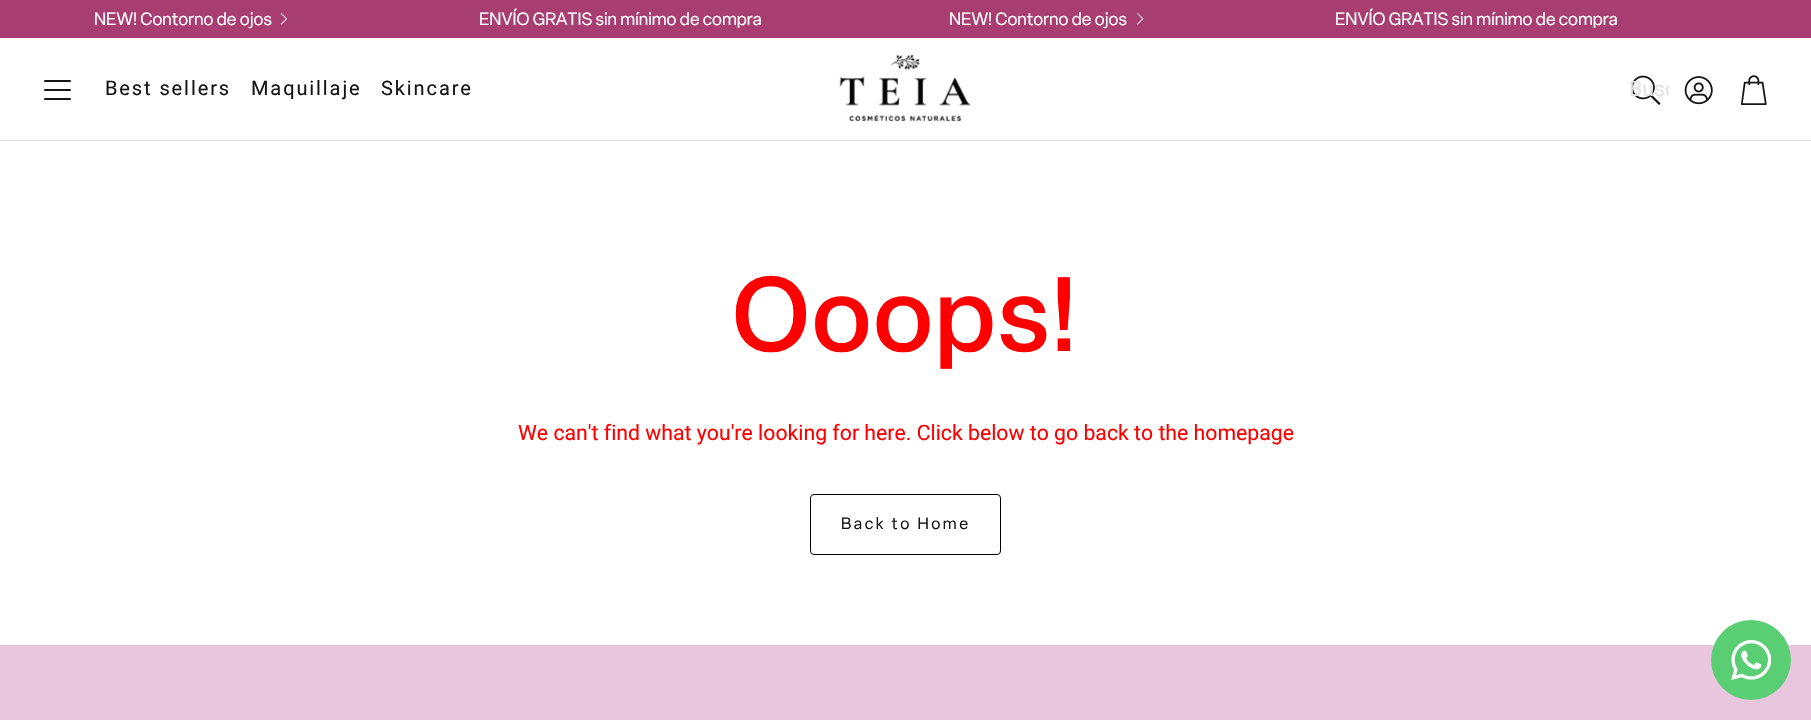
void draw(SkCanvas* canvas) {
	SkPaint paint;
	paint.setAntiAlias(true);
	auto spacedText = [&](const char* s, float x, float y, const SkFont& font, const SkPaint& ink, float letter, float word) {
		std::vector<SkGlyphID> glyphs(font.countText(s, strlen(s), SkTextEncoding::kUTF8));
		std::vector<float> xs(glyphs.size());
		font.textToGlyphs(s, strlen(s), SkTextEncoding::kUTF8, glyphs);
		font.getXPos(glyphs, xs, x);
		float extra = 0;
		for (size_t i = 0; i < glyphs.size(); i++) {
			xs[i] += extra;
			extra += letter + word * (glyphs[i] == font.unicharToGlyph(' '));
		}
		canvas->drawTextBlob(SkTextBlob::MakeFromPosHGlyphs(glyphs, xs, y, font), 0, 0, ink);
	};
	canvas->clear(0xffffffff);
	paint.setColor(0xffa83d71);
	canvas->drawRect(SkRect::MakeXYWH(0, 0, 1811, 38), paint);
	SkFont f1(fontMgr->matchFamilyStyle("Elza", SkFontStyle::Normal()), 17.5);
	f1.setSubpixel(true);
	paint.setColor(0xffffffff);
	canvas->drawString("NEW! Contorno de ojos", 94, 25, f1, paint);
	canvas->drawImageRect(SkImages::DeferredFromEncodedData(SkData::MakeFromFileName("img1.png")), SkRect::MakeXYWH(280, 13, 7, 12), SkSamplingOptions());
	canvas->drawString("ENVÍO GRATIS sin mínimo de compra", 479, 25, f1, paint);
	canvas->drawString("NEW! Contorno de ojos", 949, 25, f1, paint);
	canvas->drawImageRect(SkImages::DeferredFromEncodedData(SkData::MakeFromFileName("img2.png")), SkRect::MakeXYWH(1137, 13, 7, 12), SkSamplingOptions());
	canvas->drawString("ENVÍO GRATIS sin mínimo de compra", 1335, 25, f1, paint);
	paint.setColor(0xffdfdfdf);
	canvas->drawRect(SkRect::MakeXYWH(0, 140, 1811, 1), paint);
	paint.setColor(0xff151515);
	canvas->drawRoundRect(SkRect::MakeXYWH(44, 80, 27, 2), 1, 1, paint);
	canvas->drawRoundRect(SkRect::MakeXYWH(44, 89, 27, 2), 1, 1, paint);
	canvas->drawRoundRect(SkRect::MakeXYWH(44, 98, 27, 2), 1, 1, paint);
	SkFont f2(fontMgr->matchFamilyStyle("Roboto", SkFontStyle::Normal()), 20);
	f2.setSubpixel(true);
	spacedText("Best sellers", 105, 95, f2, paint, 1.9, 0);
	spacedText("Maquillaje", 251, 95, f2, paint, 1.9, 0);
	spacedText("Skincare", 381, 95, f2, paint, 1.9, 0);
	canvas->drawImageRect(SkImages::DeferredFromEncodedData(SkData::MakeFromFileName("img3.png")), SkRect::MakeXYWH(839, 54, 132, 68), SkSamplingOptions());
	canvas->drawImageRect(SkImages::DeferredFromEncodedData(SkData::MakeFromFileName("img4.png")), SkRect::MakeXYWH(1631, 75, 30, 30), SkSamplingOptions());
	canvas->save();
	canvas->clipRect(SkRect::MakeXYWH(1629, 78, 40, 23));
	SkFont f3(fontMgr->matchFamilyStyle("Roboto", SkFontStyle::Normal()), 21.25);
	f3.setSubpixel(true);
	paint.setColor(0xffe3e3e3);
	canvas->drawString("Busc", 1629, 96, f3, paint);
	canvas->restore();
	canvas->drawImageRect(SkImages::DeferredFromEncodedData(SkData::MakeFromFileName("img5.png")), SkRect::MakeXYWH(1684, 76, 29, 29), SkSamplingOptions());
	canvas->drawImageRect(SkImages::DeferredFromEncodedData(SkData::MakeFromFileName("img6.png")), SkRect::MakeXYWH(1741, 75, 26, 30), SkSamplingOptions());
	SkFont f4(fontMgr->matchFamilyStyle("Elza", SkFontStyle(500, SkFontStyle::kNormal_Width, SkFontStyle::kUpright_Slant)), 104);
	f4.setSubpixel(true);
	paint.setColor(0xffff0000);
	spacedText("Ooops!", 732, 351, f4, paint, 1.5, 0);
	canvas->drawString("We can't find what you're looking for here. Click below to go back to the homepage", 518, 440, f3, paint);
	paint.setStroke(true);
	paint.setStrokeWidth(1);
	paint.setColor(0xff000000);
	canvas->drawRoundRect(SkRect::MakeXYWH(810.5, 494.5, 190, 60), 3.5, 3.5, paint);
	SkFont f5(fontMgr->matchFamilyStyle("Elza", SkFontStyle::Normal()), 16.25);
	f5.setSubpixel(true);
	paint.setStroke(false);
	paint.setColor(0xff151515);
	spacedText("Back to Home", 841, 529, f5, paint, 2.5, 0);
	paint.setColor(0xffeac6de);
	canvas->drawRect(SkRect::MakeXYWH(0, 645, 1811, 75), paint);
	paint.setColor(0xff59ce72);
	canvas->drawCircle(1751, 660, 40, paint);
	canvas->drawImageRect(SkImages::DeferredFromEncodedData(SkData::MakeFromFileName("img7.png")), SkRect::MakeXYWH(1731, 640, 40, 40), SkSamplingOptions());
}
